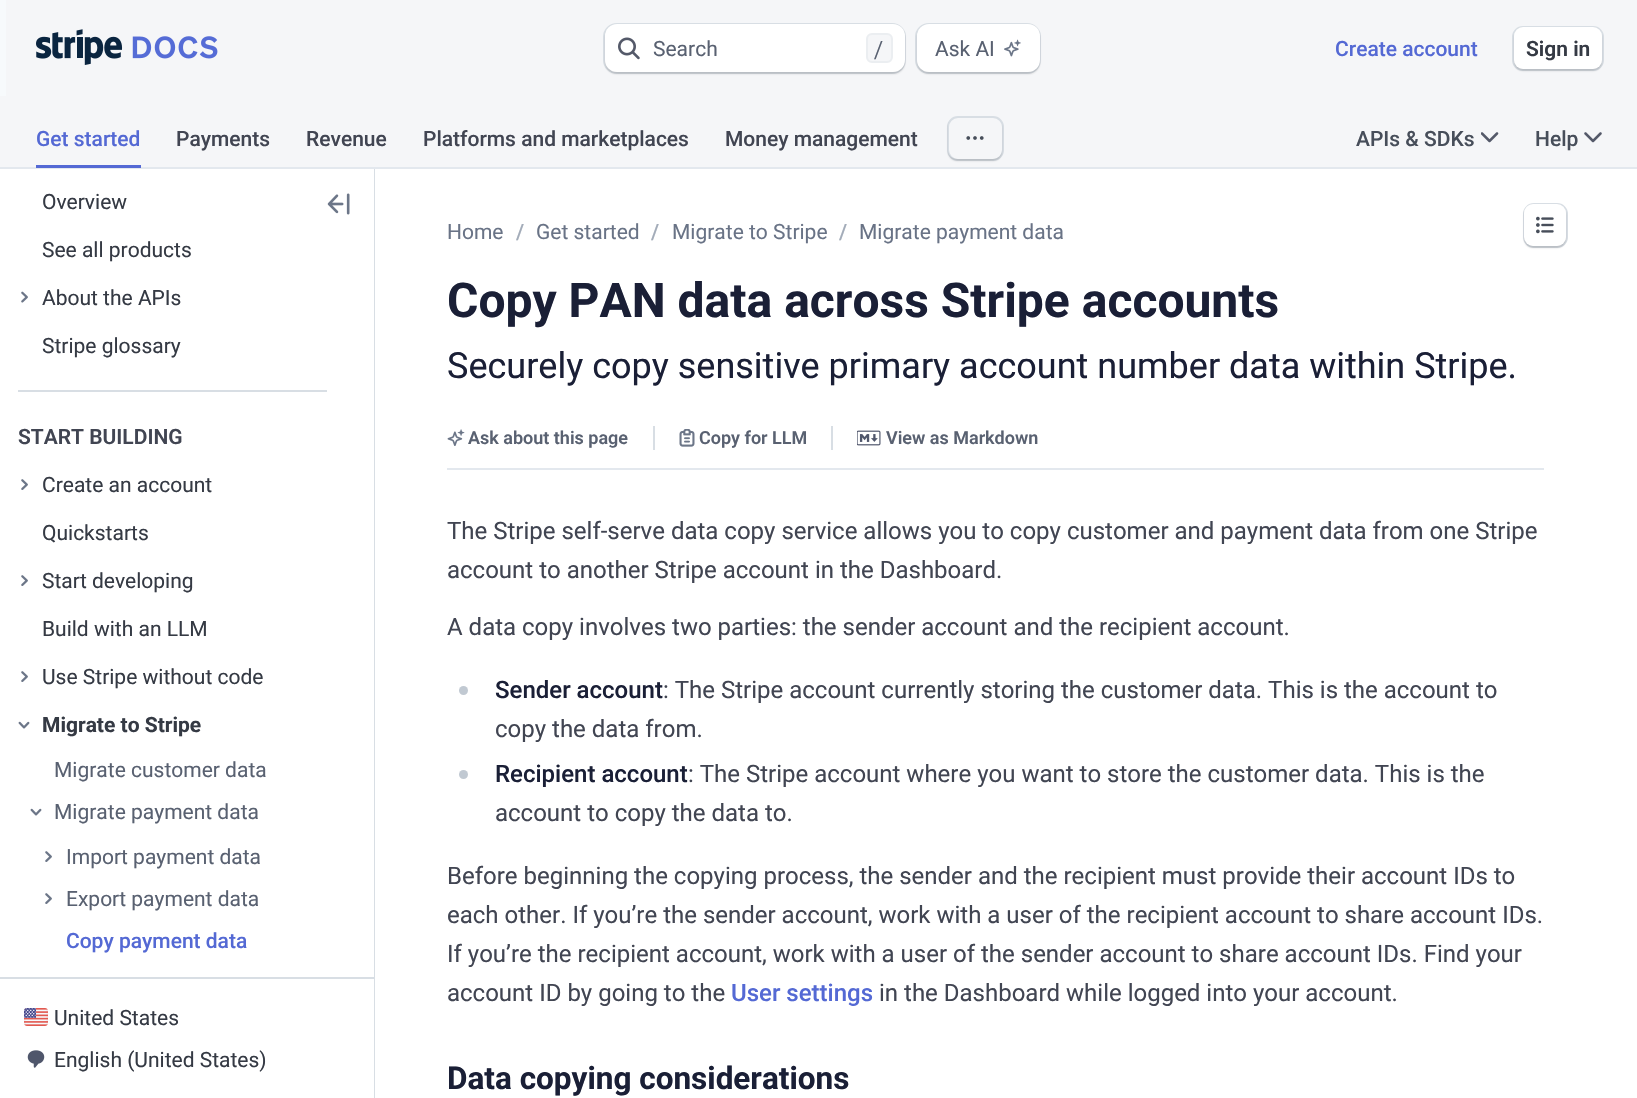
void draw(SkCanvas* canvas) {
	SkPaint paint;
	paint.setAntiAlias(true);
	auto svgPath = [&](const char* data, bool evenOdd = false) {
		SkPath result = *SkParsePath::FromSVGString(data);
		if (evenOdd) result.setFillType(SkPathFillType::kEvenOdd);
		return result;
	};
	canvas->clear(0xffffffff);
	paint.setColor(0xfff7fafc);
	canvas->drawRect(SkRect::MakeXYWH(0, 0, 6, 96), paint);
	paint.setColor(0xfff5f6f8);
	canvas->drawRect(SkRect::MakeXYWH(6, 0, 1631, 96), paint);
	canvas->drawImageRect(SkImages::DeferredFromEncodedData(SkData::MakeFromFileName("img1.png")), SkRect::MakeXYWH(36, 29, 182, 36), SkSamplingOptions());
	paint.setStroke(true);
	paint.setStrokeWidth(2);
	paint.setColor(0xffd8dee4);
	canvas->drawRoundRect(SkRect::MakeXYWH(604, 24, 301, 49), 13, 13, paint);
	paint.setStroke(false);
	paint.setColor(0x2910111a);
	paint.setMaskFilter(SkMaskFilter::MakeBlur(kNormal_SkBlurStyle, 1));
	canvas->drawRoundRect(SkRect::MakeXYWH(605, 26, 300, 48), 12, 12, paint);
	paint.setMaskFilter(nullptr);
	paint.setColor(0xffffffff);
	canvas->drawRoundRect(SkRect::MakeXYWH(605, 24, 300, 48), 12, 12, paint);
	canvas->drawImageRect(SkImages::DeferredFromEncodedData(SkData::MakeFromFileName("img2.png")), SkRect::MakeXYWH(618, 37, 22, 23), SkSamplingOptions());
	SkFont f1(fontMgr->matchFamilyStyle("Roboto", SkFontStyle::Normal()), 21);
	f1.setSubpixel(true);
	paint.setColor(0xff596171);
	canvas->drawString("Search", 653, 56, f1, paint);
	paint.setColor(0xfff5f6f8);
	canvas->drawRoundRect(SkRect::MakeXYWH(867, 34, 25, 28), 5, 5, paint);
	paint.setStroke(true);
	paint.setColor(0xffebeef1);
	canvas->drawRoundRect(SkRect::MakeXYWH(867, 34, 25, 28), 5, 5, paint);
	SkFont f2(fontMgr->matchFamilyStyle("Source Code Pro", SkFontStyle::Normal()), 21);
	f2.setSubpixel(true);
	paint.setStroke(false);
	paint.setColor(0xff596171);
	canvas->drawString("/", 872, 56, f2, paint);
	paint.setStroke(true);
	paint.setColor(0xffd8dee4);
	canvas->drawRoundRect(SkRect::MakeXYWH(916, 24, 124, 49), 13, 13, paint);
	paint.setStroke(false);
	paint.setColor(0x2910111a);
	paint.setMaskFilter(SkMaskFilter::MakeBlur(kNormal_SkBlurStyle, 1));
	canvas->drawRoundRect(SkRect::MakeXYWH(917, 26, 123, 48), 12, 12, paint);
	paint.setMaskFilter(nullptr);
	paint.setColor(0xffffffff);
	canvas->drawRoundRect(SkRect::MakeXYWH(917, 24, 123, 48), 12, 12, paint);
	paint.setColor(0xff596171);
	canvas->drawString("Ask AI", 935, 56, f1, paint);
	canvas->drawImageRect(SkImages::DeferredFromEncodedData(SkData::MakeFromFileName("img3.png")), SkRect::MakeXYWH(1004, 39, 17, 18), SkSamplingOptions());
	SkFont f3(fontMgr->matchFamilyStyle("Roboto", SkFontStyle(500, SkFontStyle::kNormal_Width, SkFontStyle::kUpright_Slant)), 21);
	f3.setSubpixel(true);
	paint.setColor(0xff5469d4);
	canvas->drawString("Create account", 1335, 56, f3, paint);
	paint.setStroke(true);
	paint.setColor(0xffd8dee4);
	canvas->drawRoundRect(SkRect::MakeXYWH(1513, 27, 90, 43), 10, 10, paint);
	paint.setStroke(false);
	paint.setColor(0x2910111a);
	paint.setMaskFilter(SkMaskFilter::MakeBlur(kNormal_SkBlurStyle, 1));
	canvas->drawRoundRect(SkRect::MakeXYWH(1514, 29, 88, 42), 9, 9, paint);
	paint.setMaskFilter(nullptr);
	paint.setColor(0xffffffff);
	canvas->drawRoundRect(SkRect::MakeXYWH(1514, 27, 88, 42), 9, 9, paint);
	SkFont f4(fontMgr->matchFamilyStyle("Roboto", SkFontStyle(600, SkFontStyle::kNormal_Width, SkFontStyle::kUpright_Slant)), 21);
	f4.setSubpixel(true);
	paint.setColor(0xff353a44);
	canvas->drawString("Sign in", 1526, 56, f4, paint);
	paint.setColor(0xfff5f6f8);
	canvas->drawRect(SkRect::MakeXYWH(0, 96, 1637, 71), paint);
	paint.setColor(0xffd8dee4);
	canvas->drawRect(SkRect::MakeXYWH(374, 168, 1, 930), paint);
	paint.setColor(0xffe3e8ee);
	canvas->drawRect(SkRect::MakeXYWH(0, 167, 1637, 2), paint);
	paint.setColor(0xff5469d4);
	canvas->drawString("Get started", 36, 146, f3, paint);
	canvas->drawRect(SkRect::MakeXYWH(36, 165, 105, 3), paint);
	paint.setColor(0xff414552);
	canvas->drawString("Payments", 176, 146, f3, paint);
	canvas->drawString("Revenue", 306, 146, f3, paint);
	canvas->drawString("Platforms and marketplaces", 423, 146, f3, paint);
	canvas->drawString("Money management", 725, 146, f3, paint);
	paint.setStroke(true);
	paint.setColor(0xffd8dee4);
	canvas->drawRoundRect(SkRect::MakeXYWH(948, 117, 55, 43), 10, 10, paint);
	canvas->save();
	canvas->clipPath(svgPath("M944 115H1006V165H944ZM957 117H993C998 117 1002 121 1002 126V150C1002 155 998 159 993 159H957C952 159 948 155 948 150V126C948 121 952 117 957 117Z", true), true);
	paint.setStroke(false);
	paint.setColor(0x2910111a);
	paint.setMaskFilter(SkMaskFilter::MakeBlur(kNormal_SkBlurStyle, 1));
	canvas->drawRoundRect(SkRect::MakeXYWH(948, 119, 54, 42), 9, 9, paint);
	paint.setMaskFilter(nullptr);
	canvas->restore();
	canvas->drawImageRect(SkImages::DeferredFromEncodedData(SkData::MakeFromFileName("img4.png")), SkRect::MakeXYWH(966, 136, 18, 4), SkSamplingOptions());
	paint.setColor(0xff474e5a);
	canvas->drawString("APIs & SDKs", 1356, 146, f3, paint);
	canvas->drawImageRect(SkImages::DeferredFromEncodedData(SkData::MakeFromFileName("img5.png")), SkRect::MakeXYWH(1481, 132, 18, 11), SkSamplingOptions());
	canvas->drawString("Help", 1535, 146, f3, paint);
	canvas->drawImageRect(SkImages::DeferredFromEncodedData(SkData::MakeFromFileName("img6.png")), SkRect::MakeXYWH(1584, 132, 18, 11), SkSamplingOptions());
	paint.setColor(0xff353a44);
	canvas->drawString("Overview", 42, 209, f1, paint);
	canvas->drawString("See all products", 42, 257, f1, paint);
	canvas->drawImageRect(SkImages::DeferredFromEncodedData(SkData::MakeFromFileName("img7.png")), SkRect::MakeXYWH(21, 291, 7, 12), SkSamplingOptions());
	canvas->drawString("About the APIs", 42, 305, f1, paint);
	canvas->drawString("Stripe glossary", 42, 353, f1, paint);
	paint.setColor(0xffd8dee4);
	canvas->drawRect(SkRect::MakeXYWH(18, 390, 309, 2), paint);
	paint.setColor(0xff414552);
	canvas->drawString("START BUILDING", 18, 444, f4, paint);
	canvas->drawImageRect(SkImages::DeferredFromEncodedData(SkData::MakeFromFileName("img8.png")), SkRect::MakeXYWH(21, 479, 7, 11), SkSamplingOptions());
	paint.setColor(0xff353a44);
	canvas->drawString("Create an account", 42, 492, f1, paint);
	canvas->drawString("Quickstarts", 42, 540, f1, paint);
	canvas->drawImageRect(SkImages::DeferredFromEncodedData(SkData::MakeFromFileName("img8.png")), SkRect::MakeXYWH(21, 575, 7, 11), SkSamplingOptions());
	canvas->drawString("Start developing", 42, 588, f1, paint);
	canvas->drawString("Build with an LLM", 42, 636, f1, paint);
	canvas->drawImageRect(SkImages::DeferredFromEncodedData(SkData::MakeFromFileName("img8.png")), SkRect::MakeXYWH(21, 671, 7, 11), SkSamplingOptions());
	canvas->drawString("Use Stripe without code", 42, 684, f1, paint);
	canvas->drawImageRect(SkImages::DeferredFromEncodedData(SkData::MakeFromFileName("img9.png")), SkRect::MakeXYWH(18, 721, 12, 8), SkSamplingOptions());
	SkFont f5(fontMgr->matchFamilyStyle("Roboto", SkFontStyle::Bold()), 21);
	f5.setSubpixel(true);
	canvas->drawString("Migrate to Stripe", 42, 732, f5, paint);
	paint.setColor(0xff596171);
	canvas->drawString("Migrate customer data", 54, 777, f1, paint);
	canvas->drawImageRect(SkImages::DeferredFromEncodedData(SkData::MakeFromFileName("img9.png")), SkRect::MakeXYWH(30, 808, 12, 8), SkSamplingOptions());
	canvas->drawString("Migrate payment data", 54, 819, f1, paint);
	canvas->drawImageRect(SkImages::DeferredFromEncodedData(SkData::MakeFromFileName("img8.png")), SkRect::MakeXYWH(45, 851, 7, 11), SkSamplingOptions());
	canvas->drawString("Import payment data", 66, 864, f1, paint);
	canvas->drawImageRect(SkImages::DeferredFromEncodedData(SkData::MakeFromFileName("img8.png")), SkRect::MakeXYWH(45, 893, 7, 11), SkSamplingOptions());
	canvas->drawString("Export payment data", 66, 906, f1, paint);
	paint.setColor(0xff5469d4);
	canvas->drawString("Copy payment data", 66, 948, f3, paint);
	paint.setColor(0xffd8dee4);
	canvas->drawRect(SkRect::MakeXYWH(0, 977, 374, 2), paint);
	canvas->drawImageRect(SkImages::DeferredFromEncodedData(SkData::MakeFromFileName("img10.png")), SkRect::MakeXYWH(24, 1008, 24, 18), SkSamplingOptions());
	paint.setColor(0xff353a44);
	canvas->drawString("United States", 54, 1025, f1, paint);
	canvas->drawImageRect(SkImages::DeferredFromEncodedData(SkData::MakeFromFileName("img11.png")), SkRect::MakeXYWH(27, 1050, 18, 18), SkSamplingOptions());
	canvas->drawString("English (United States)", 54, 1067, f1, paint);
	canvas->drawImageRect(SkImages::DeferredFromEncodedData(SkData::MakeFromFileName("img12.png")), SkRect::MakeXYWH(327, 193, 23, 22), SkSamplingOptions());
	paint.setColor(0xff697386);
	canvas->drawString("Home", 447, 239, f1, paint);
	paint.setColor(0xffa3acb9);
	canvas->drawString("/", 516, 239, f3, paint);
	paint.setColor(0xff697386);
	canvas->drawString("Get started", 536, 239, f1, paint);
	paint.setColor(0xffa3acb9);
	canvas->drawString("/", 651, 239, f3, paint);
	paint.setColor(0xff697386);
	canvas->drawString("Migrate to Stripe", 672, 239, f1, paint);
	paint.setColor(0xffa3acb9);
	canvas->drawString("/", 839, 239, f3, paint);
	paint.setColor(0xff697386);
	canvas->drawString("Migrate payment data", 859, 239, f1, paint);
	paint.setStroke(true);
	paint.setColor(0xffd8dee4);
	canvas->drawRoundRect(SkRect::MakeXYWH(1524, 204, 43, 43), 10, 10, paint);
	paint.setStroke(false);
	paint.setColor(0x2910111a);
	paint.setMaskFilter(SkMaskFilter::MakeBlur(kNormal_SkBlurStyle, 1));
	canvas->drawRoundRect(SkRect::MakeXYWH(1524, 206, 42, 42), 9, 9, paint);
	paint.setMaskFilter(nullptr);
	paint.setColor(0xffffffff);
	canvas->drawRoundRect(SkRect::MakeXYWH(1524, 204, 42, 42), 9, 9, paint);
	canvas->drawImageRect(SkImages::DeferredFromEncodedData(SkData::MakeFromFileName("img13.png")), SkRect::MakeXYWH(1536, 216, 18, 18), SkSamplingOptions());
	SkFont f6(fontMgr->matchFamilyStyle("Roboto", SkFontStyle::Bold()), 48);
	f6.setSubpixel(true);
	paint.setColor(0xff1a1f36);
	canvas->drawString("Copy PAN data across Stripe accounts", 447, 317, f6, paint);
	SkFont f7(fontMgr->matchFamilyStyle("Roboto", SkFontStyle::Normal()), 36);
	f7.setSubpixel(true);
	canvas->drawString("Securely copy sensitive primary account number data within Stripe.", 447, 378, f7, paint);
	paint.setColor(0xffe3e8ee);
	canvas->drawRect(SkRect::MakeXYWH(447, 468, 1097, 2), paint);
	canvas->drawImageRect(SkImages::DeferredFromEncodedData(SkData::MakeFromFileName("img14.png")), SkRect::MakeXYWH(447, 429, 18, 17), SkSamplingOptions());
	SkFont f8(fontMgr->matchFamilyStyle("Roboto", SkFontStyle(600, SkFontStyle::kNormal_Width, SkFontStyle::kUpright_Slant)), 18);
	f8.setSubpixel(true);
	paint.setColor(0xff596171);
	canvas->drawString("Ask about this page", 468, 444, f8, paint);
	paint.setColor(0xffd8dee4);
	canvas->drawRect(SkRect::MakeXYWH(653, 426, 2, 24), paint);
	canvas->drawImageRect(SkImages::DeferredFromEncodedData(SkData::MakeFromFileName("img15.png")), SkRect::MakeXYWH(679, 429, 16, 18), SkSamplingOptions());
	paint.setColor(0xff596171);
	canvas->drawString("Copy for LLM", 699, 444, f8, paint);
	paint.setColor(0xffd8dee4);
	canvas->drawRect(SkRect::MakeXYWH(831, 426, 2, 24), paint);
	canvas->drawImageRect(SkImages::DeferredFromEncodedData(SkData::MakeFromFileName("img16.png")), SkRect::MakeXYWH(857, 430, 24, 16), SkSamplingOptions());
	paint.setColor(0xff596171);
	canvas->drawString("View as Markdown", 886, 444, f8, paint);
	SkFont f9(fontMgr->matchFamilyStyle("Roboto", SkFontStyle::Normal()), 24);
	f9.setSubpixel(true);
	paint.setColor(0xff414552);
	canvas->drawString("The Stripe self-serve data copy service allows you to copy customer and payment data from one Stripe", 447, 539, f9, paint);
	canvas->drawString("account to another Stripe account in the Dashboard.", 447, 578, f9, paint);
	canvas->drawString("A data copy involves two parties: the sender account and the recipient account.", 447, 635, f9, paint);
	paint.setColor(0xffc1c9d2);
	canvas->drawCircle(463.5, 690.5, 4.5, paint);
	SkFont f10(fontMgr->matchFamilyStyle("Roboto", SkFontStyle(500, SkFontStyle::kNormal_Width, SkFontStyle::kUpright_Slant)), 24);
	f10.setSubpixel(true);
	paint.setColor(0xff1a1f36);
	canvas->drawString("Sender account", 495, 698, f10, paint);
	paint.setColor(0xff414552);
	canvas->drawString(": The Stripe account currently storing the customer data. This is the account to", 663, 698, f9, paint);
	canvas->drawString("copy the data from.", 495, 737, f9, paint);
	paint.setColor(0xffc1c9d2);
	canvas->drawCircle(463.5, 774.5, 4.5, paint);
	paint.setColor(0xff1a1f36);
	canvas->drawString("Recipient account", 495, 782, f10, paint);
	paint.setColor(0xff414552);
	canvas->drawString(": The Stripe account where you want to store the customer data. This is the", 688, 782, f9, paint);
	canvas->drawString("account to copy the data to.", 495, 821, f9, paint);
	canvas->drawString("Before beginning the copying process, the sender and the recipient must provide their account IDs to", 447, 884, f9, paint);
	canvas->drawString("each other. If you’re the sender account, work with a user of the recipient account to share account IDs.", 447, 923, f9, paint);
	canvas->drawString("If you’re the recipient account, work with a user of the sender account to share account IDs. Find your", 447, 962, f9, paint);
	canvas->drawString("account ID by going to the", 447, 1001, f9, paint);
	paint.setColor(0xff5469d4);
	canvas->drawString("User settings", 731, 1001, f10, paint);
	paint.setColor(0xff414552);
	canvas->drawString("in the Dashboard while logged into your account.", 879, 1001, f9, paint);
	SkFont f11(fontMgr->matchFamilyStyle("Roboto", SkFontStyle::Bold()), 31.5);
	f11.setSubpixel(true);
	paint.setColor(0xff1a1f36);
	canvas->drawString("Data copying considerations", 447, 1089, f11, paint);
}
